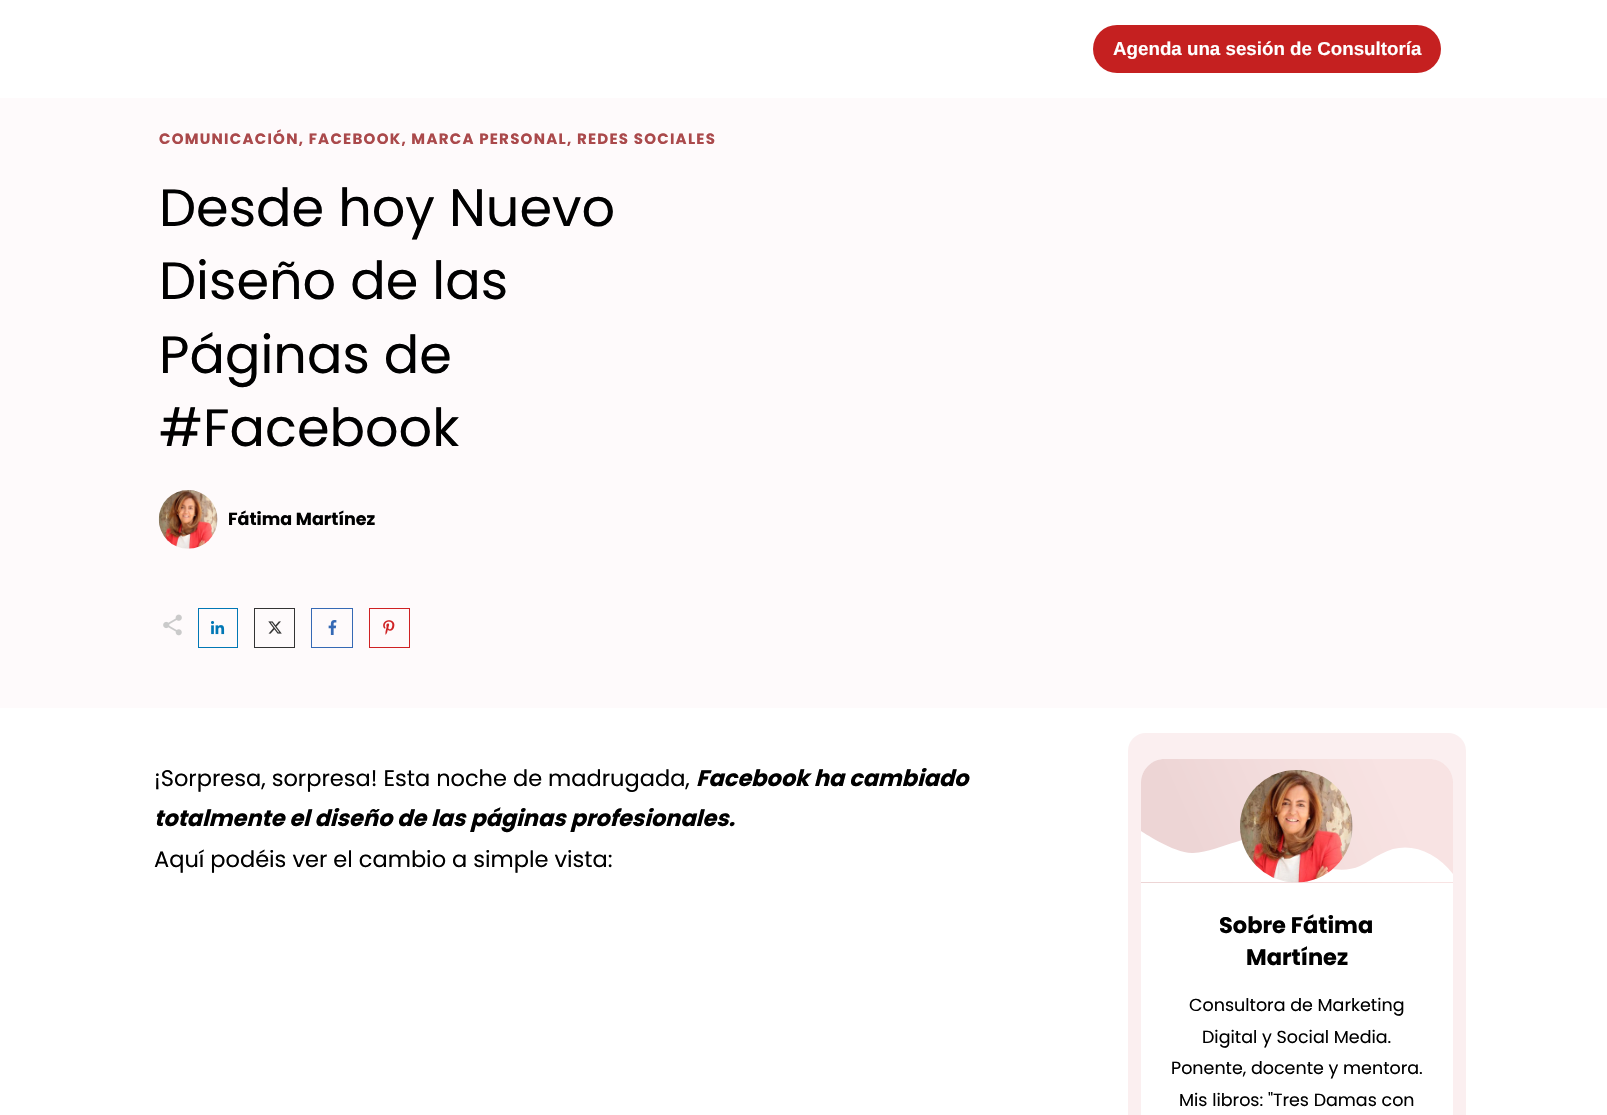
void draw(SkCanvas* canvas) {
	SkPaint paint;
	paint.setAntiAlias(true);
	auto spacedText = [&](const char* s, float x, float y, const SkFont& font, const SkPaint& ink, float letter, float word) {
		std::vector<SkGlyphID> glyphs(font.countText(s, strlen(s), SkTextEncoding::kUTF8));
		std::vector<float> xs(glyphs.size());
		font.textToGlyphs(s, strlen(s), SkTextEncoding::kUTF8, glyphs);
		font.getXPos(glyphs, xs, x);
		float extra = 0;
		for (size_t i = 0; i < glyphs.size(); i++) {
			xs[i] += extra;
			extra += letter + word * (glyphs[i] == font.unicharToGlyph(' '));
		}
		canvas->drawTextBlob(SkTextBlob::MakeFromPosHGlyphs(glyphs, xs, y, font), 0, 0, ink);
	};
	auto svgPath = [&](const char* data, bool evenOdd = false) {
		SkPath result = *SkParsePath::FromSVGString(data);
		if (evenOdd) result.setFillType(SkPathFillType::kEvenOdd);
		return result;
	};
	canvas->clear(0xffffffff);
	paint.setColor(0xffc52020);
	canvas->drawRoundRect(SkRect::MakeXYWH(1093, 25, 348, 48), 24, 24, paint);
	SkFont f1(fontMgr->matchFamilyStyle("Liberation Sans", SkFontStyle::Bold()), 18.75);
	f1.setSubpixel(true);
	paint.setColor(0xffffffff);
	canvas->drawString("Agenda una sesión de Consultoría", 1113, 55, f1, paint);
	paint.setColor(0xfffefafb);
	canvas->drawRect(SkRect::MakeXYWH(0, 98, 1607, 610), paint);
	SkFont f2(fontMgr->matchFamilyStyle("Poppins", SkFontStyle::Bold()), 15);
	f2.setSubpixel(true);
	paint.setColor(0xffaa494b);
	spacedText("COMUNICACIÓN, FACEBOOK, MARCA PERSONAL, REDES SOCIALES", 159, 144, f2, paint, 1.25, 0);
	SkFont f3(fontMgr->matchFamilyStyle("Poppins", SkFontStyle::Normal()), 52.5);
	f3.setSubpixel(true);
	paint.setColor(0xff000000);
	canvas->drawString("Desde hoy Nuevo", 159, 226, f3, paint);
	canvas->drawString("Diseño de las", 159, 299, f3, paint);
	canvas->drawString("Páginas de", 159, 373, f3, paint);
	canvas->drawString("#Facebook", 159, 446, f3, paint);
	canvas->drawImageRect(SkImages::DeferredFromEncodedData(SkData::MakeFromFileName("img1.png")), SkRect::MakeXYWH(158, 490, 60, 59), SkSamplingOptions());
	SkFont f4(fontMgr->matchFamilyStyle("Poppins", SkFontStyle::Bold()), 17.5);
	f4.setSubpixel(true);
	canvas->drawString("Fátima Martínez", 228, 525, f4, paint);
	canvas->drawImageRect(SkImages::DeferredFromEncodedData(SkData::MakeFromFileName("img2.png")), SkRect::MakeXYWH(163, 614, 19, 22), SkSamplingOptions());
	paint.setStroke(true);
	paint.setStrokeWidth(1);
	paint.setColor(0xff0177b5);
	canvas->drawRect(SkRect::MakeXYWH(198.5, 608.5, 39, 39), paint);
	canvas->drawImageRect(SkImages::DeferredFromEncodedData(SkData::MakeFromFileName("img3.png")), SkRect::MakeXYWH(211, 621, 14, 14), SkSamplingOptions());
	paint.setColor(0xff333333);
	canvas->drawRect(SkRect::MakeXYWH(254.5, 608.5, 40, 39), paint);
	canvas->drawImageRect(SkImages::DeferredFromEncodedData(SkData::MakeFromFileName("img4.png")), SkRect::MakeXYWH(268, 621, 14, 13), SkSamplingOptions());
	paint.setColor(0xff3569b4);
	canvas->drawRect(SkRect::MakeXYWH(311.5, 608.5, 41, 39), paint);
	canvas->drawImageRect(SkImages::DeferredFromEncodedData(SkData::MakeFromFileName("img5.png")), SkRect::MakeXYWH(328, 620, 9, 15), SkSamplingOptions());
	paint.setColor(0xffcf2123);
	canvas->drawRect(SkRect::MakeXYWH(369.5, 608.5, 40, 39), paint);
	canvas->drawImageRect(SkImages::DeferredFromEncodedData(SkData::MakeFromFileName("img6.png")), SkRect::MakeXYWH(383, 620, 12, 15), SkSamplingOptions());
	SkFont f5(fontMgr->matchFamilyStyle("Poppins", SkFontStyle::Normal()), 22.5);
	f5.setSubpixel(true);
	paint.setStroke(false);
	paint.setColor(0xff000000);
	canvas->drawString("¡Sorpresa, sorpresa! Esta noche de madrugada,", 154, 786, f5, paint);
	SkFont f6(fontMgr->matchFamilyStyle("Poppins", SkFontStyle::BoldItalic()), 22.5);
	f6.setSubpixel(true);
	canvas->drawString("Facebook ha cambiado", 696, 786, f6, paint);
	canvas->drawString("totalmente el diseño de las páginas profesionales.", 154, 826, f6, paint);
	canvas->drawString("Aquí podéis ver el cambio a simple vista:", 154, 867, f5, paint);
	paint.setColor(0xfffbeff0);
	canvas->drawRoundRect(SkRect::MakeXYWH(1128, 733, 338, 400), 18, 18, paint);
	paint.setColor(0xffffffff);
	canvas->drawRoundRect(SkRect::MakeXYWH(1140.5, 758.5, 313, 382), 24.5, 24.5, paint);
	paint.setStroke(true);
	paint.setColor(0xfffbeff0);
	canvas->drawRoundRect(SkRect::MakeXYWH(1140.5, 758.5, 313, 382), 24.5, 24.5, paint);
	paint.setStroke(false);
	canvas->drawPath(svgPath("M1165 759H1429C1442.5 759 1453 769.5 1453 783V883H1141V783C1141 769.5 1151.5 759 1165 759Z"), paint);
	paint.setColor(0xe6ffffff);
	canvas->drawPath(svgPath("M1165 759H1429C1442.5 759 1453 769.5 1453 783V883H1141V783C1141 769.5 1151.5 759 1165 759Z"), paint);
	{
		const SkColor colors[] = {0x2e9a1d1d, 0x1fc52320};
		const float stops[] = {0.19, 0.8};
		const SkPoint ends[] = {{1144, 889}, {1450, 753}};
		paint.setShader(SkGradientShader::MakeLinear(ends, colors, stops, 2, SkTileMode::kClamp));
		paint.setAlpha(255);
	}
	canvas->drawPath(svgPath("M1165 759H1429C1442.5 759 1453 769.5 1453 783V883H1141V783C1141 769.5 1151.5 759 1165 759Z"), paint);
	paint.setShader(nullptr);
	paint.setColor(0xffffffff);
	canvas->drawPath(svgPath("M1141 831V882H1453V874C1434 849 1405 840 1381 854C1374 857 1367 863 1360 866C1349 871 1337 870 1326 868C1320 866 1314 865 1308 862C1298 856 1289 846 1279 841C1265 835 1250 837 1236 842C1222 846 1208 852 1193 853C1175 854 1141 831 1141 831Z"), paint);
	canvas->drawImageRect(SkImages::DeferredFromEncodedData(SkData::MakeFromFileName("img7.png")), SkRect::MakeXYWH(1240, 770, 113, 113), SkSamplingOptions());
	SkFont f7(fontMgr->matchFamilyStyle("Poppins", SkFontStyle::Bold()), 22.5);
	f7.setSubpixel(true);
	paint.setColor(0xff000000);
	canvas->drawString("Sobre Fátima", 1219, 933, f7, paint);
	canvas->drawString("Martínez", 1246, 965, f7, paint);
	SkFont f8(fontMgr->matchFamilyStyle("Poppins", SkFontStyle::Normal()), 17.5);
	f8.setSubpixel(true);
	canvas->drawString("Consultora de Marketing", 1189, 1011, f8, paint);
	canvas->drawString("Digital y Social Media.", 1202, 1043, f8, paint);
	canvas->drawString("Ponente, docente y mentora.", 1171, 1074, f8, paint);
	canvas->drawString("Mis libros: \"Tres Damas con", 1179, 1106, f8, paint);
}
